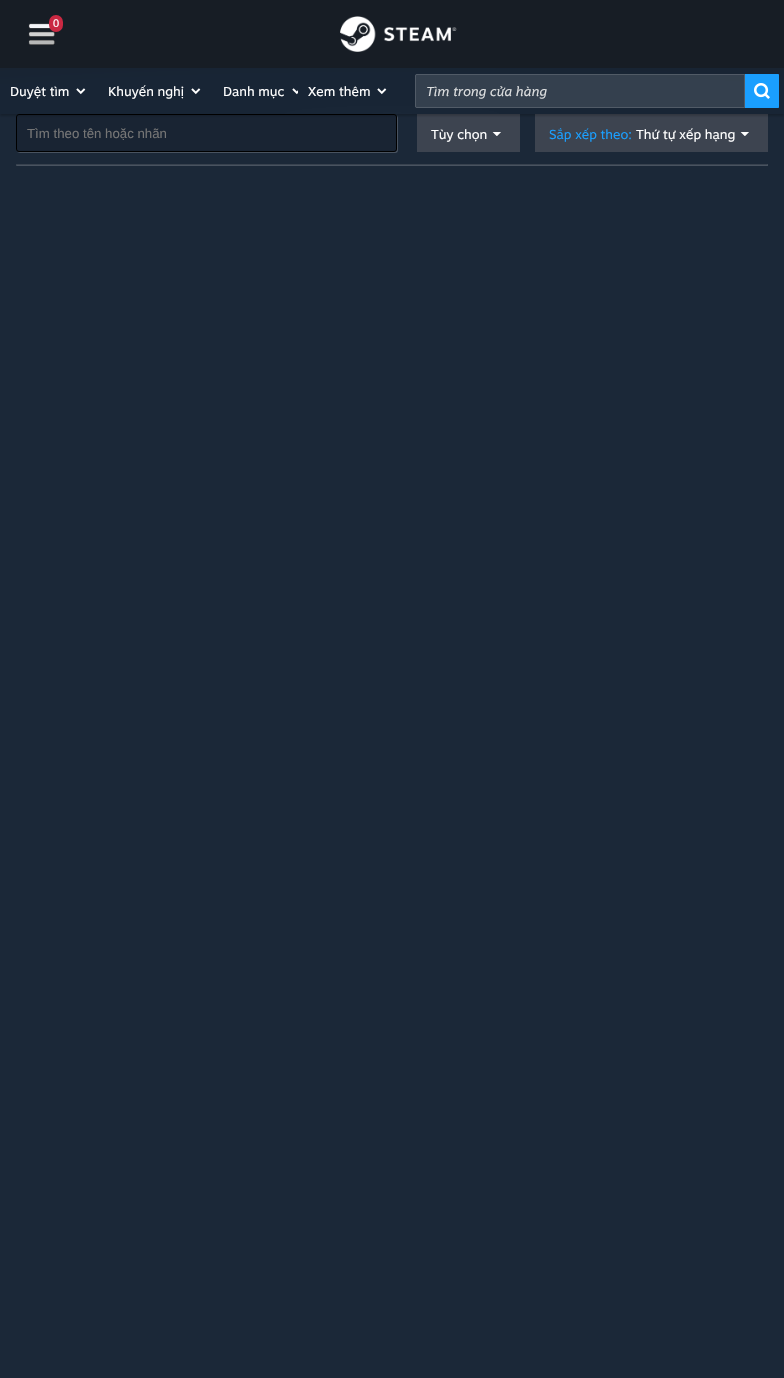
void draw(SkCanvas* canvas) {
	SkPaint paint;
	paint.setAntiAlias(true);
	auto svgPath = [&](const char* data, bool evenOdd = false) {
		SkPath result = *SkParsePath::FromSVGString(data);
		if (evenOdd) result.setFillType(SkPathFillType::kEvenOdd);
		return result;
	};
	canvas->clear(0xff1b2838);
	paint.setColor(0xff171d25);
	canvas->drawRect(SkRect::MakeXYWH(0, 0, 784, 68), paint);
	canvas->drawImageRect(SkImages::DeferredFromEncodedData(SkData::MakeFromFileName("img1.png")), SkRect::MakeXYWH(28, 23, 27, 22), SkSamplingOptions());
	paint.setColor(0xffca2842);
	canvas->drawRoundRect(SkRect::MakeXYWH(49, 15, 14, 17), 7, 7, paint);
	SkFont f1(fontMgr->matchFamilyStyle("Liberation Sans", SkFontStyle::Normal()), 11);
	f1.setSubpixel(true);
	paint.setColor(0xffffffff);
	canvas->drawString("0", 53, 27, f1, paint);
	canvas->drawImageRect(SkImages::DeferredFromEncodedData(SkData::MakeFromFileName("img2.png")), SkRect::MakeXYWH(340, 16, 117, 36), SkSamplingOptions());
	paint.setColor(0xff495360);
	canvas->drawPath(svgPath("M17 152C18 152 19 153 20 153H395C397 153 398 152 398 150V118C398 117 397 116 397 115V117V149C397 151 396 152 394 152H19Z"), paint);
	paint.setColor(0x1a000000);
	canvas->drawRoundRect(SkRect::MakeXYWH(16.5, 114.5, 380, 37), 2.5, 2.5, paint);
	paint.setStroke(true);
	paint.setStrokeWidth(1);
	paint.setColor(0xff000000);
	canvas->drawRoundRect(SkRect::MakeXYWH(16.5, 114.5, 380, 37), 2.5, 2.5, paint);
	paint.setStroke(false);
	paint.setColor(0xff3d4450);
	canvas->drawRect(SkRect::MakeXYWH(417, 114, 103, 38), paint);
	canvas->drawRect(SkRect::MakeXYWH(535, 114, 233, 38), paint);
	paint.setColor(0x33000000);
	paint.setMaskFilter(SkMaskFilter::MakeBlur(kNormal_SkBlurStyle, 1));
	canvas->drawRect(SkRect::MakeXYWH(0, 70, 784, 46), paint);
	paint.setMaskFilter(nullptr);
	{
		const SkColor colors[] = {0xff1a2737, 0xff192636, 0xff182535, 0xff182535, 0xff192330};
		const float stops[] = {0, 0.05, 0.2, 0.6, 1};
		SkMatrix m = SkMatrix::Translate(392, 114).preScale(855, 66);
		paint.setShader(SkGradientShader::MakeRadial({0, 0}, 1, colors, stops, 5, SkTileMode::kClamp, 0, &m));
		paint.setAlpha(255);
	}
	canvas->drawRect(SkRect::MakeXYWH(0, 68, 784, 46), paint);
	SkFont f2(fontMgr->matchFamilyStyle("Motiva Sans", SkFontStyle::Normal()), 13);
	f2.setSubpixel(true);
	paint.setShader(nullptr);
	paint.setColor(0xffffffff);
	canvas->drawString("Duyệt tìm", 10, 96, f2, paint);
	canvas->drawImageRect(SkImages::DeferredFromEncodedData(SkData::MakeFromFileName("img3.png")), SkRect::MakeXYWH(76, 88, 10, 7), SkSamplingOptions());
	canvas->drawString("Khuyến nghị", 108, 96, f2, paint);
	canvas->drawImageRect(SkImages::DeferredFromEncodedData(SkData::MakeFromFileName("img3.png")), SkRect::MakeXYWH(191, 88, 10, 7), SkSamplingOptions());
	canvas->drawString("Danh mục", 223, 96, f2, paint);
	canvas->drawImageRect(SkImages::DeferredFromEncodedData(SkData::MakeFromFileName("img4.png")), SkRect::MakeXYWH(292, 88, 6, 7), SkSamplingOptions());
	canvas->drawString("Xem thêm", 308, 96, f2, paint);
	canvas->drawImageRect(SkImages::DeferredFromEncodedData(SkData::MakeFromFileName("img3.png")), SkRect::MakeXYWH(377, 88, 10, 7), SkSamplingOptions());
	paint.setColor(0x1fffffff);
	canvas->drawRoundRect(SkRect::MakeXYWH(415, 74, 364, 34), 2, 2, paint);
	paint.setStroke(true);
	paint.setColor(0x24ffffff);
	canvas->drawPath(svgPath("M417 74.5H744.5V107.5H417C416 107.5 415.5 107 415.5 106V76C415.5 75 416 74.5 417 74.5Z"), paint);
	SkFont f3(fontMgr->matchFamilyStyle("Motiva Sans", SkFontStyle::Italic()), 13);
	f3.setSubpixel(true);
	paint.setStroke(false);
	paint.setColor(0xffdcdedf);
	canvas->drawString("Tìm trong cửa hàng", 426, 96, f3, paint);
	paint.setColor(0xff1a9fff);
	canvas->drawPath(svgPath("M745 74H778C778.5 74 779 74.5 779 75V107C779 107.5 778.5 108 778 108H745Z"), paint);
	canvas->drawImageRect(SkImages::DeferredFromEncodedData(SkData::MakeFromFileName("img5.png")), SkRect::MakeXYWH(754, 83, 16, 16), SkSamplingOptions());
	SkFont f4(fontMgr->matchFamilyStyle("Liberation Sans", SkFontStyle::Normal()), 13.25);
	f4.setSubpixel(true);
	paint.setColor(0xff757575);
	canvas->drawString("Tìm theo tên hoặc nhãn", 27, 138, f4, paint);
	paint.setColor(0xffffffff);
	canvas->drawString("Tùy chọn", 431, 139, f2, paint);
	canvas->drawImageRect(SkImages::DeferredFromEncodedData(SkData::MakeFromFileName("img6.png")), SkRect::MakeXYWH(492, 132, 9, 4), SkSamplingOptions());
	paint.setColor(0xff1a9fff);
	canvas->drawString("Sắp xếp theo:", 549, 139, f2, paint);
	paint.setColor(0xffffffff);
	canvas->drawString("Thứ tự xếp hạng", 636, 139, f2, paint);
	canvas->drawImageRect(SkImages::DeferredFromEncodedData(SkData::MakeFromFileName("img6.png")), SkRect::MakeXYWH(740, 132, 9, 4), SkSamplingOptions());
	paint.setColor(0xff38424f);
	canvas->drawPath(svgPath("M16 164H768L767 165H17Z"), paint);
	paint.setColor(0x33ffffff);
	canvas->drawPath(svgPath("M768 164V166L767 165Z"), paint);
	canvas->drawPath(svgPath("M768 166H16L17 165H767Z"), paint);
	paint.setColor(0x33aaaaaa);
	canvas->drawPath(svgPath("M16 166V164L17 165Z"), paint);
}
